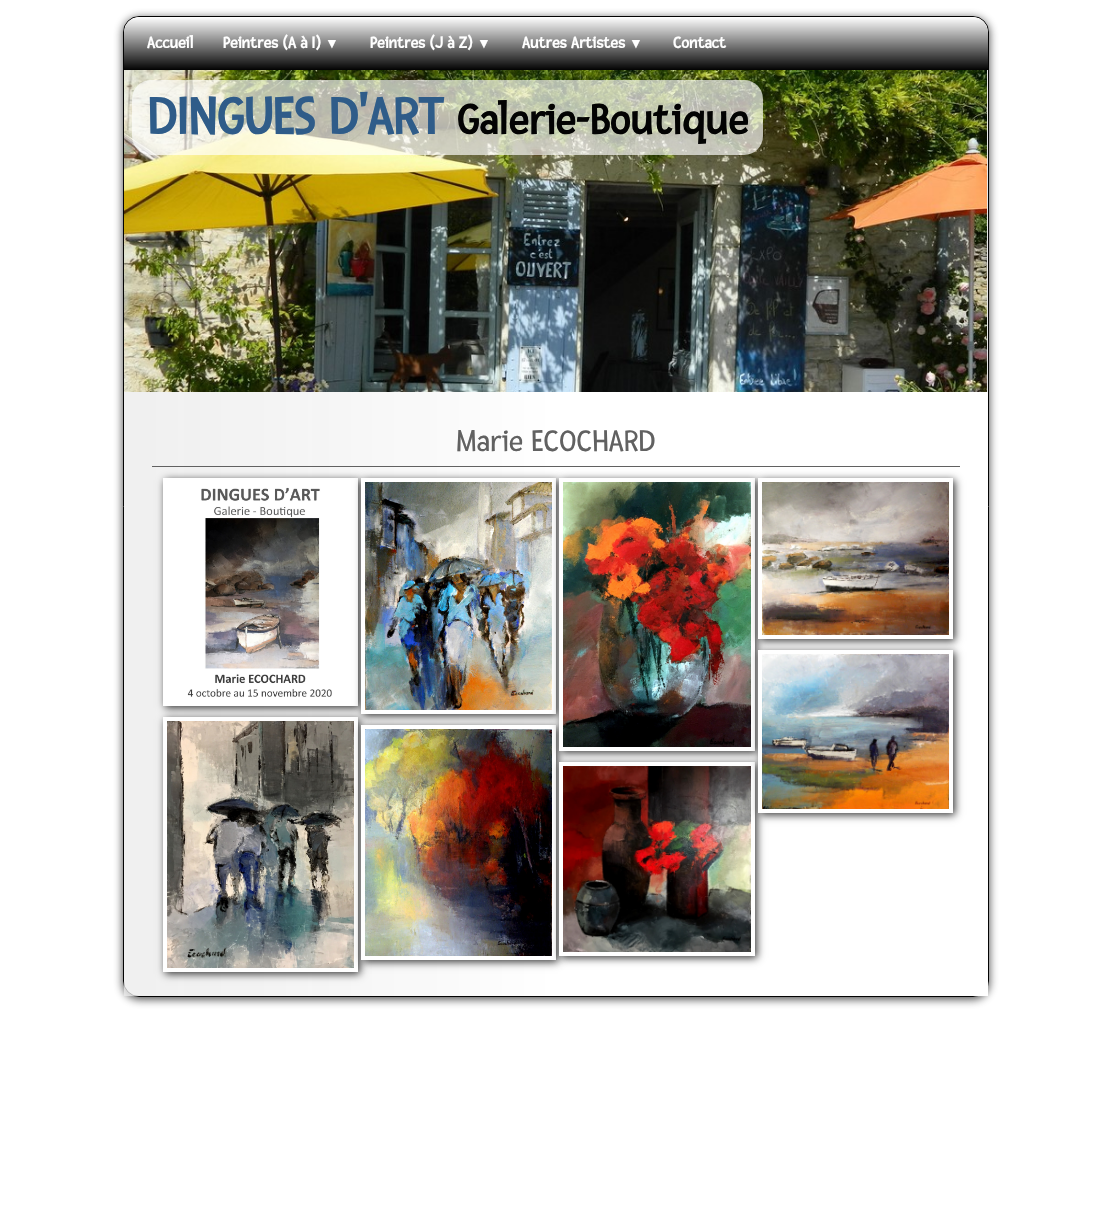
void draw(SkCanvas* canvas) {
	SkPaint paint;
	paint.setAntiAlias(true);
	auto svgPath = [&](const char* data, bool evenOdd = false) {
		SkPath result = *SkParsePath::FromSVGString(data);
		if (evenOdd) result.setFillType(SkPathFillType::kEvenOdd);
		return result;
	};
	canvas->clear(0xffffffff);
	paint.setColor(0xbf030303);
	paint.setMaskFilter(SkMaskFilter::MakeBlur(kNormal_SkBlurStyle, 5));
	canvas->drawRoundRect(SkRect::MakeXYWH(123, 18, 866, 981), 16, 16, paint);
	paint.setMaskFilter(nullptr);
	paint.setColor(0xffffffff);
	canvas->drawRoundRect(SkRect::MakeXYWH(123.5, 16.5, 865, 980), 15.5, 15.5, paint);
	paint.setStroke(true);
	paint.setStrokeWidth(1);
	paint.setColor(0xff030303);
	canvas->drawRoundRect(SkRect::MakeXYWH(123.5, 16.5, 865, 980), 15.5, 15.5, paint);
	paint.setStroke(false);
	paint.setColor(0xffebebeb);
	canvas->drawPath(svgPath("M150 17H962C976.5 17 988 28.5 988 43V392H124V43C124 28.5 135.5 17 150 17Z"), paint);
	{
		const SkColor colors[] = {0xffffffff, 0xff030303};
		const float stops[] = {0, 1};
		const SkPoint ends[] = {{556, 17}, {556, 70}};
		paint.setShader(SkGradientShader::MakeLinear(ends, colors, stops, 2, SkTileMode::kClamp));
		paint.setAlpha(255);
	}
	canvas->drawPath(svgPath("M140 17H972C981 17 988 24 988 33V70H124V33C124 24 131 17 140 17Z"), paint);
	SkFont f1(fontMgr->matchFamilyStyle("Fresca", SkFontStyle::Bold()), 17);
	f1.setSubpixel(true);
	paint.setShader(nullptr);
	paint.setColor(0xffffffff);
	canvas->drawString("Accueil", 147, 48, f1, paint);
	canvas->drawString("Peintres (A à I)", 223, 48, f1, paint);
	SkFont f2(fontMgr->matchFamilyStyle("Liberation Serif", SkFontStyle::Bold()), 14);
	f2.setSubpixel(true);
	canvas->drawString("▼", 325, 48, f2, paint);
	canvas->drawString("Peintres (J à Z)", 370, 48, f1, paint);
	canvas->drawString("▼", 477, 48, f2, paint);
	canvas->drawString("Autres Artistes", 522, 48, f1, paint);
	canvas->drawString("▼", 629, 48, f2, paint);
	canvas->drawString("Contact", 673, 48, f1, paint);
	canvas->drawImageRect(SkImages::DeferredFromEncodedData(SkData::MakeFromFileName("img1.png")), SkRect::MakeXYWH(124, 70, 863, 322), SkSamplingOptions());
	paint.setColor(0xabffffff);
	canvas->drawRoundRect(SkRect::MakeXYWH(132, 80, 631, 75), 19, 19, paint);
	SkFont f3(fontMgr->matchFamilyStyle("Fresca", SkFontStyle::Bold()), 55);
	f3.setSubpixel(true);
	paint.setColor(0xff2f5c89);
	canvas->drawString("DINGUES D'ART", 147, 134, f3, paint);
	SkFont f4(fontMgr->matchFamilyStyle("Fresca", SkFontStyle::Bold()), 45);
	f4.setSubpixel(true);
	paint.setColor(0xff030303);
	canvas->drawString("Galerie-Boutique", 457, 134, f4, paint);
	{
		const SkColor colors[] = {0xc2ebebeb, 0xffffffff, 0xffffffff};
		const float stops[] = {0, 0.5, 1};
		const SkPoint ends[] = {{124, 694}, {988, 694}};
		paint.setShader(SkGradientShader::MakeLinear(ends, colors, stops, 3, SkTileMode::kClamp));
		paint.setAlpha(255);
	}
	canvas->drawRect(SkRect::MakeXYWH(124, 392, 864, 604), paint);
	paint.setShader(nullptr);
	paint.setColor(0xff616161);
	canvas->drawRect(SkRect::MakeXYWH(152, 466, 808, 1), paint);
	SkFont f5(fontMgr->matchFamilyStyle("Fresca", SkFontStyle::Normal()), 32);
	f5.setSubpixel(true);
	canvas->drawString("Marie ECOCHARD", 456, 451, f5, paint);
	paint.setColor(0xff363636);
	paint.setMaskFilter(SkMaskFilter::MakeBlur(kNormal_SkBlurStyle, 4));
	canvas->drawRect(SkRect::MakeXYWH(165, 480, 195, 228), paint);
	paint.setMaskFilter(nullptr);
	paint.setStroke(true);
	paint.setStrokeWidth(4);
	paint.setColor(0xffffffff);
	canvas->drawRect(SkRect::MakeXYWH(165, 480, 191, 224), paint);
	canvas->drawImageRect(SkImages::DeferredFromEncodedData(SkData::MakeFromFileName("img2.png")), SkRect::MakeXYWH(167, 482, 187, 220), SkSamplingOptions());
	paint.setStroke(false);
	paint.setColor(0xff363636);
	paint.setMaskFilter(SkMaskFilter::MakeBlur(kNormal_SkBlurStyle, 4));
	canvas->drawRect(SkRect::MakeXYWH(165, 719, 195, 255), paint);
	paint.setMaskFilter(nullptr);
	paint.setStroke(true);
	paint.setColor(0xffffffff);
	canvas->drawRect(SkRect::MakeXYWH(165, 719, 191, 251), paint);
	canvas->drawImageRect(SkImages::DeferredFromEncodedData(SkData::MakeFromFileName("img3.png")), SkRect::MakeXYWH(167, 721, 187, 247), SkSamplingOptions());
	paint.setStroke(false);
	paint.setColor(0xff363636);
	paint.setMaskFilter(SkMaskFilter::MakeBlur(kNormal_SkBlurStyle, 4));
	canvas->drawRect(SkRect::MakeXYWH(363, 480, 195, 236), paint);
	paint.setMaskFilter(nullptr);
	paint.setStroke(true);
	paint.setColor(0xffffffff);
	canvas->drawRect(SkRect::MakeXYWH(363, 480, 191, 232), paint);
	canvas->drawImageRect(SkImages::DeferredFromEncodedData(SkData::MakeFromFileName("img4.png")), SkRect::MakeXYWH(365, 482, 187, 228), SkSamplingOptions());
	paint.setStroke(false);
	paint.setColor(0xff363636);
	paint.setMaskFilter(SkMaskFilter::MakeBlur(kNormal_SkBlurStyle, 4));
	canvas->drawRect(SkRect::MakeXYWH(363, 727, 195, 235), paint);
	paint.setMaskFilter(nullptr);
	paint.setStroke(true);
	paint.setColor(0xffffffff);
	canvas->drawRect(SkRect::MakeXYWH(363, 727, 191, 231), paint);
	canvas->drawImageRect(SkImages::DeferredFromEncodedData(SkData::MakeFromFileName("img5.png")), SkRect::MakeXYWH(365, 729, 187, 227), SkSamplingOptions());
	paint.setStroke(false);
	paint.setColor(0xff363636);
	paint.setMaskFilter(SkMaskFilter::MakeBlur(kNormal_SkBlurStyle, 4));
	canvas->drawRect(SkRect::MakeXYWH(561, 480, 196, 273), paint);
	paint.setMaskFilter(nullptr);
	paint.setStroke(true);
	paint.setColor(0xffffffff);
	canvas->drawRect(SkRect::MakeXYWH(561, 480, 192, 269), paint);
	canvas->drawImageRect(SkImages::DeferredFromEncodedData(SkData::MakeFromFileName("img6.png")), SkRect::MakeXYWH(563, 482, 188, 265), SkSamplingOptions());
	paint.setStroke(false);
	paint.setColor(0xff363636);
	paint.setMaskFilter(SkMaskFilter::MakeBlur(kNormal_SkBlurStyle, 4));
	canvas->drawRect(SkRect::MakeXYWH(561, 764, 196, 194), paint);
	paint.setMaskFilter(nullptr);
	paint.setStroke(true);
	paint.setColor(0xffffffff);
	canvas->drawRect(SkRect::MakeXYWH(561, 764, 192, 190), paint);
	canvas->drawImageRect(SkImages::DeferredFromEncodedData(SkData::MakeFromFileName("img7.png")), SkRect::MakeXYWH(563, 766, 188, 186), SkSamplingOptions());
	paint.setStroke(false);
	paint.setColor(0xff363636);
	paint.setMaskFilter(SkMaskFilter::MakeBlur(kNormal_SkBlurStyle, 4));
	canvas->drawRect(SkRect::MakeXYWH(760, 480, 195, 161), paint);
	paint.setMaskFilter(nullptr);
	paint.setStroke(true);
	paint.setColor(0xffffffff);
	canvas->drawRect(SkRect::MakeXYWH(760, 480, 191, 157), paint);
	canvas->drawImageRect(SkImages::DeferredFromEncodedData(SkData::MakeFromFileName("img8.png")), SkRect::MakeXYWH(762, 482, 187, 153), SkSamplingOptions());
	paint.setStroke(false);
	paint.setColor(0xff363636);
	paint.setMaskFilter(SkMaskFilter::MakeBlur(kNormal_SkBlurStyle, 4));
	canvas->drawRect(SkRect::MakeXYWH(760, 652, 195, 163), paint);
	paint.setMaskFilter(nullptr);
	paint.setStroke(true);
	paint.setColor(0xffffffff);
	canvas->drawRect(SkRect::MakeXYWH(760, 652, 191, 159), paint);
	canvas->drawImageRect(SkImages::DeferredFromEncodedData(SkData::MakeFromFileName("img9.png")), SkRect::MakeXYWH(762, 654, 187, 155), SkSamplingOptions());
}
